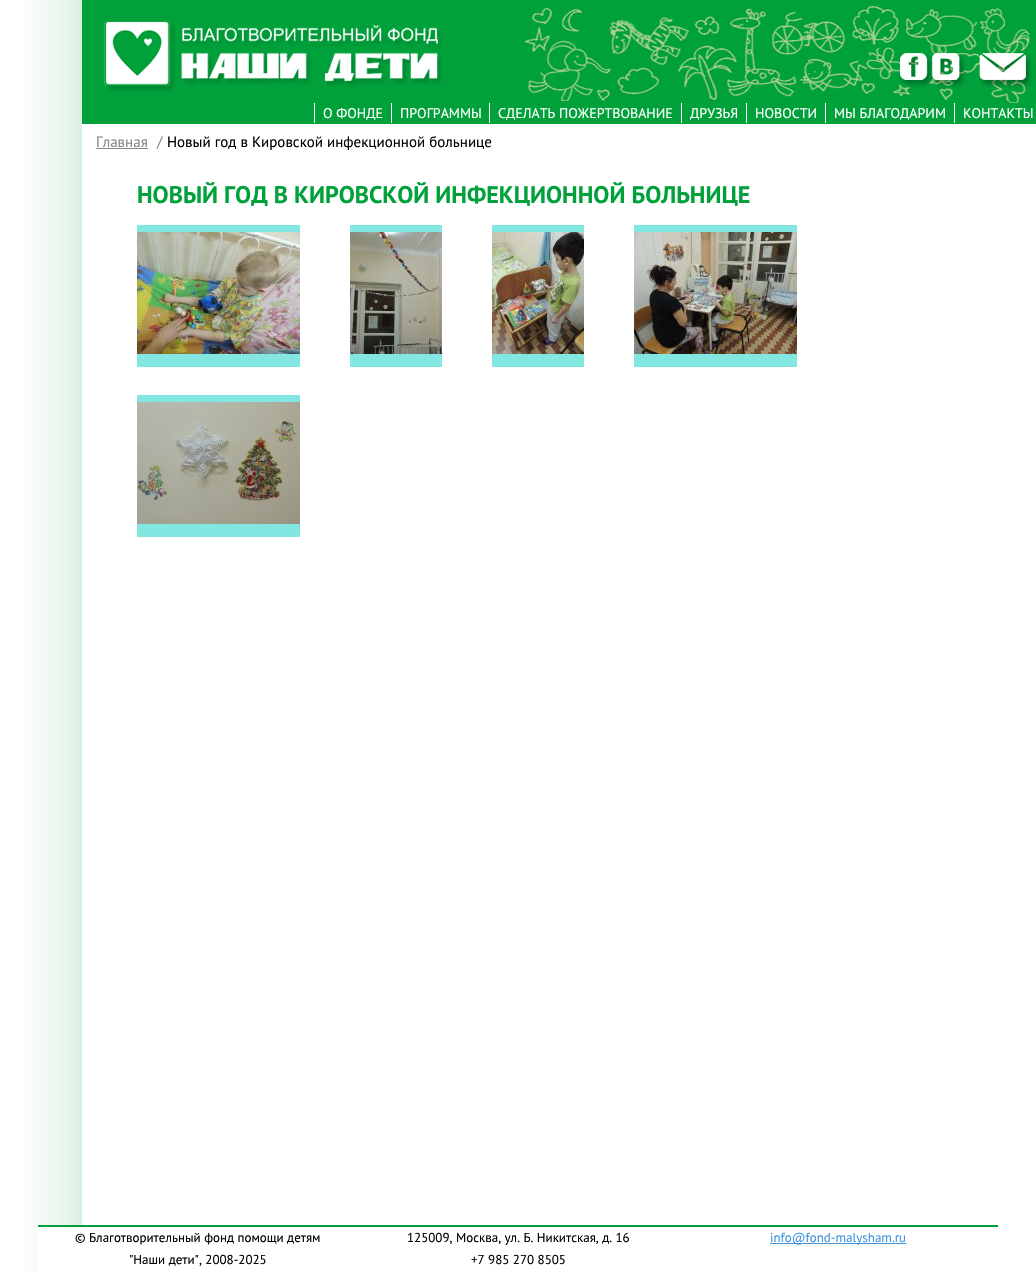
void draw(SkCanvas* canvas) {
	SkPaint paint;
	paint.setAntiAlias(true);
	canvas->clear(0xffffffff);
	canvas->drawImageRect(SkImages::DeferredFromEncodedData(SkData::MakeFromFileName("img1.png")), SkRect::MakeXYWH(24, 0, 58, 1272), SkSamplingOptions());
	paint.setColor(0xff00a13a);
	canvas->drawRect(SkRect::MakeXYWH(82, 0, 954, 124), paint);
	canvas->drawImageRect(SkImages::DeferredFromEncodedData(SkData::MakeFromFileName("img2.png")), SkRect::MakeXYWH(525, 6, 505, 97), SkSamplingOptions());
	canvas->drawImageRect(SkImages::DeferredFromEncodedData(SkData::MakeFromFileName("img3.png")), SkRect::MakeXYWH(104, 20, 338, 72), SkSamplingOptions());
	canvas->drawImageRect(SkImages::DeferredFromEncodedData(SkData::MakeFromFileName("img4.png")), SkRect::MakeXYWH(899, 53, 32, 35), SkSamplingOptions());
	canvas->drawImageRect(SkImages::DeferredFromEncodedData(SkData::MakeFromFileName("img5.png")), SkRect::MakeXYWH(931, 53, 35, 35), SkSamplingOptions());
	canvas->drawImageRect(SkImages::DeferredFromEncodedData(SkData::MakeFromFileName("img6.png")), SkRect::MakeXYWH(979, 53, 54, 35), SkSamplingOptions());
	paint.setColor(0xffffffff);
	canvas->drawRect(SkRect::MakeXYWH(314, 103, 1, 20), paint);
	SkFont f1(fontMgr->matchFamilyStyle("PT Sans", SkFontStyle::Normal()), 14);
	f1.setSubpixel(true);
	canvas->drawString("О ФОНДЕ", 323, 118, f1, paint);
	canvas->drawRect(SkRect::MakeXYWH(391, 103, 1, 20), paint);
	canvas->drawString("ПРОГРАММЫ", 400, 118, f1, paint);
	canvas->drawRect(SkRect::MakeXYWH(489, 103, 1, 20), paint);
	canvas->drawString("СДЕЛАТЬ ПОЖЕРТВОВАНИЕ", 498, 118, f1, paint);
	canvas->drawRect(SkRect::MakeXYWH(681, 103, 1, 20), paint);
	canvas->drawString("ДРУЗЬЯ", 690, 118, f1, paint);
	canvas->drawRect(SkRect::MakeXYWH(746, 103, 1, 20), paint);
	canvas->drawString("НОВОСТИ", 755, 118, f1, paint);
	canvas->drawRect(SkRect::MakeXYWH(825, 103, 1, 20), paint);
	canvas->drawString("МЫ БЛАГОДАРИМ", 834, 118, f1, paint);
	canvas->drawRect(SkRect::MakeXYWH(954, 103, 1, 20), paint);
	canvas->drawString("КОНТАКТЫ", 963, 118, f1, paint);
	SkFont f2(fontMgr->matchFamilyStyle("PT Sans", SkFontStyle::Normal()), 15);
	f2.setSubpixel(true);
	paint.setColor(0xff87888a);
	canvas->drawString("Главная", 96, 147, f2, paint);
	canvas->drawRect(SkRect::MakeXYWH(96, 148, 52, 1), paint);
	canvas->drawString("/", 157, 147, f2, paint);
	paint.setColor(0xff000000);
	canvas->drawString("Новый год в Кировской инфекционной больнице", 167, 147, f2, paint);
	SkFont f3(fontMgr->matchFamilyStyle("PT Sans", SkFontStyle::Bold()), 24);
	f3.setSubpixel(true);
	paint.setColor(0xff00a13a);
	canvas->drawString("НОВЫЙ ГОД В КИРОВСКОЙ ИНФЕКЦИОННОЙ БОЛЬНИЦЕ", 137, 203, f3, paint);
	paint.setColor(0xff82e7e1);
	canvas->drawRect(SkRect::MakeXYWH(137, 225, 163, 142), paint);
	canvas->drawImageRect(SkImages::DeferredFromEncodedData(SkData::MakeFromFileName("img7.png")), SkRect::MakeXYWH(137, 232, 163, 122), SkSamplingOptions());
	canvas->drawRect(SkRect::MakeXYWH(350, 225, 92, 142), paint);
	canvas->drawImageRect(SkImages::DeferredFromEncodedData(SkData::MakeFromFileName("img8.png")), SkRect::MakeXYWH(350, 232, 92, 122), SkSamplingOptions());
	canvas->drawRect(SkRect::MakeXYWH(492, 225, 92, 142), paint);
	canvas->drawImageRect(SkImages::DeferredFromEncodedData(SkData::MakeFromFileName("img9.png")), SkRect::MakeXYWH(492, 232, 92, 122), SkSamplingOptions());
	canvas->drawRect(SkRect::MakeXYWH(634, 225, 163, 142), paint);
	canvas->drawImageRect(SkImages::DeferredFromEncodedData(SkData::MakeFromFileName("img10.png")), SkRect::MakeXYWH(634, 232, 163, 122), SkSamplingOptions());
	canvas->drawRect(SkRect::MakeXYWH(137, 395, 163, 142), paint);
	canvas->drawImageRect(SkImages::DeferredFromEncodedData(SkData::MakeFromFileName("img11.png")), SkRect::MakeXYWH(137, 402, 163, 122), SkSamplingOptions());
	paint.setColor(0xffffffff);
	canvas->drawRect(SkRect::MakeXYWH(38, 1227, 44, 45), paint);
	paint.setColor(0xff00a13a);
	canvas->drawRect(SkRect::MakeXYWH(38, 1225, 960, 2), paint);
	SkFont f4(fontMgr->matchFamilyStyle("PT Sans", SkFontStyle::Normal()), 13);
	f4.setSubpixel(true);
	paint.setColor(0xff000000);
	canvas->drawString("© Благотворительный фонд помощи детям", 75, 1242, f4, paint);
	canvas->drawString("\"Наши дети\", 2008-2025", 129, 1264, f4, paint);
	canvas->drawString("125009, Москва, ул. Б. Никитская, д. 16", 407, 1242, f4, paint);
	canvas->drawString("+7 985 270 8505", 471, 1264, f4, paint);
	paint.setColor(0xff3f92de);
	canvas->drawRect(SkRect::MakeXYWH(770, 1243, 136, 1), paint);
	canvas->drawString("info@fond-malysham.ru", 770, 1242, f4, paint);
}
